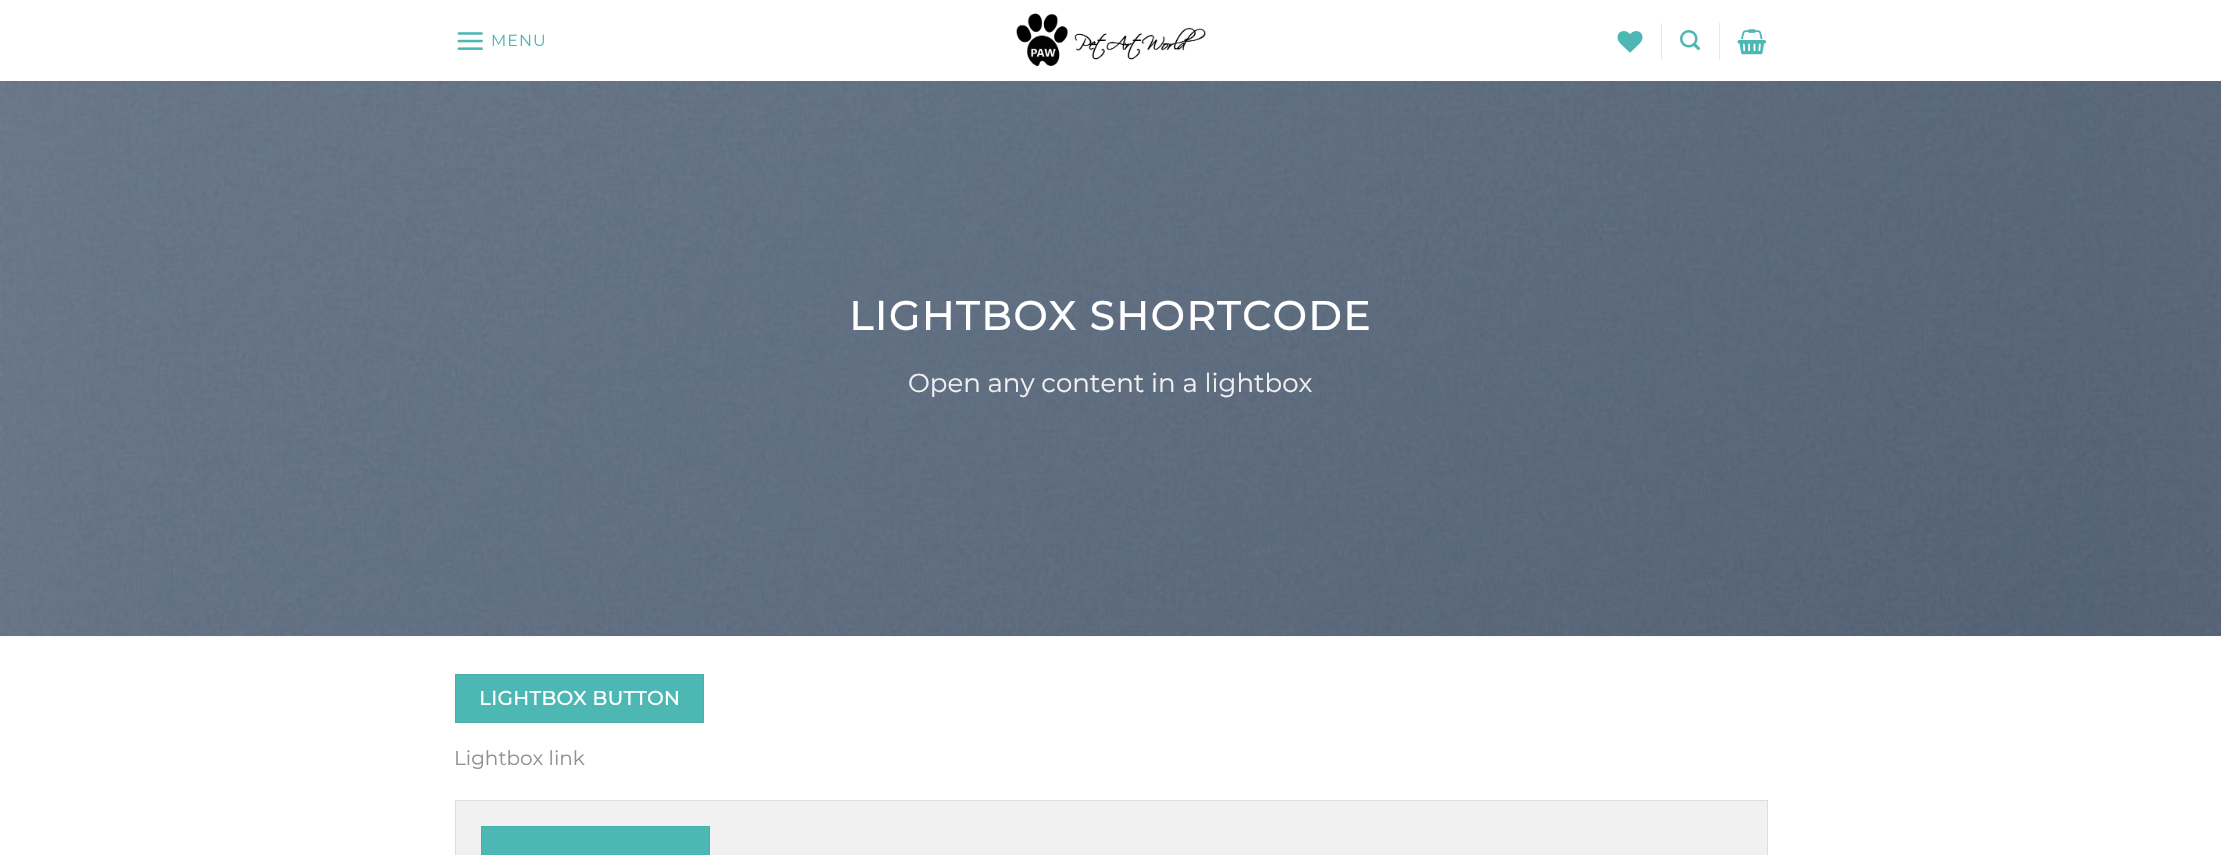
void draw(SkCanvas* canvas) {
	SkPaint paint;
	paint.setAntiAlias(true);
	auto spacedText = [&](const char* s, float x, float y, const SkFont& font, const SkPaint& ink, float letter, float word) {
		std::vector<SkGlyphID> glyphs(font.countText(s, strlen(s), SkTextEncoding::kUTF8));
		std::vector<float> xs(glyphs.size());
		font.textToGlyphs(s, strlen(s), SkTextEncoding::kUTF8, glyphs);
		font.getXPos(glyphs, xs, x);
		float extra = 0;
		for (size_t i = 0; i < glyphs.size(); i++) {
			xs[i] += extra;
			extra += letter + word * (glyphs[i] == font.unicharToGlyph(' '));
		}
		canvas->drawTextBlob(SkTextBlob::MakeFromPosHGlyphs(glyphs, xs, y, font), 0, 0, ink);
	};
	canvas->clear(0xffffffff);
	canvas->drawImageRect(SkImages::DeferredFromEncodedData(SkData::MakeFromFileName("img1.png")), SkRect::MakeXYWH(457, 32, 26, 18), SkSamplingOptions());
	SkFont f1(fontMgr->matchFamilyStyle("Montserrat", SkFontStyle(100, SkFontStyle::kNormal_Width, SkFontStyle::kUpright_Slant)), 16);
	f1.setSubpixel(true);
	paint.setColor(0xff4db7b3);
	spacedText("MENU", 491, 46, f1, paint, 1, 0);
	canvas->drawImageRect(SkImages::DeferredFromEncodedData(SkData::MakeFromFileName("img2.png")), SkRect::MakeXYWH(1016, 13, 190, 54), SkSamplingOptions());
	canvas->drawImageRect(SkImages::DeferredFromEncodedData(SkData::MakeFromFileName("img3.png")), SkRect::MakeXYWH(1617, 31, 26, 22), SkSamplingOptions());
	paint.setColor(0xffe6e6e6);
	canvas->drawRect(SkRect::MakeXYWH(1661, 23, 1, 37), paint);
	canvas->drawImageRect(SkImages::DeferredFromEncodedData(SkData::MakeFromFileName("img4.png")), SkRect::MakeXYWH(1680, 30, 20, 20), SkSamplingOptions());
	canvas->drawRect(SkRect::MakeXYWH(1719, 23, 1, 37), paint);
	canvas->drawImageRect(SkImages::DeferredFromEncodedData(SkData::MakeFromFileName("img5.png")), SkRect::MakeXYWH(1737, 29, 29, 26), SkSamplingOptions());
	paint.setColor(0xff36807d);
	canvas->drawRect(SkRect::MakeXYWH(0, 81, 2221, 1), paint);
	canvas->drawImageRect(SkImages::DeferredFromEncodedData(SkData::MakeFromFileName("img6.png")), SkRect::MakeXYWH(0, 81, 2221, 556), SkSamplingOptions());
	paint.setColor(0x1a777777);
	canvas->drawRect(SkRect::MakeXYWH(455, 81, 1313, 1), paint);
	SkFont f2(fontMgr->matchFamilyStyle("Montserrat", SkFontStyle::Bold()), 40);
	f2.setSubpixel(true);
	paint.setColor(0xffffffff);
	spacedText("LIGHTBOX SHORTCODE", 849, 330, f2, paint, 2, 0);
	SkFont f3(fontMgr->matchFamilyStyle("Montserrat", SkFontStyle(100, SkFontStyle::kNormal_Width, SkFontStyle::kUpright_Slant)), 26);
	f3.setSubpixel(true);
	paint.setColor(0xfff1f1f1);
	canvas->drawString("Open any content in a lightbox", 908, 392, f3, paint);
	paint.setColor(0xff4db7b3);
	canvas->drawRect(SkRect::MakeXYWH(455.5, 674.5, 248, 48), paint);
	paint.setStroke(true);
	paint.setStrokeWidth(1);
	paint.setColor(0xff49aeaa);
	canvas->drawRect(SkRect::MakeXYWH(455.5, 674.5, 248, 48), paint);
	SkFont f4(fontMgr->matchFamilyStyle("Montserrat", SkFontStyle::Bold()), 19.4);
	f4.setSubpixel(true);
	paint.setStroke(false);
	paint.setColor(0xffffffff);
	spacedText("LIGHTBOX BUTTON", 479, 705, f4, paint, 0.6, 0);
	SkFont f5(fontMgr->matchFamilyStyle("Montserrat", SkFontStyle(100, SkFontStyle::kNormal_Width, SkFontStyle::kUpright_Slant)), 20);
	f5.setSubpixel(true);
	paint.setColor(0xff919191);
	canvas->drawString("Lightbox link", 454, 765, f5, paint);
	paint.setColor(0xfff1f1f1);
	canvas->drawRect(SkRect::MakeXYWH(455.5, 800.5, 1312, 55), paint);
	paint.setStroke(true);
	paint.setColor(0xffdddddd);
	canvas->drawRect(SkRect::MakeXYWH(455.5, 800.5, 1312, 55), paint);
	paint.setStroke(false);
	paint.setColor(0xff4db7b3);
	canvas->drawRect(SkRect::MakeXYWH(481.5, 826.5, 228, 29), paint);
	paint.setStroke(true);
	paint.setColor(0xff49aeaa);
	canvas->drawRect(SkRect::MakeXYWH(481.5, 826.5, 228, 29), paint);
}
